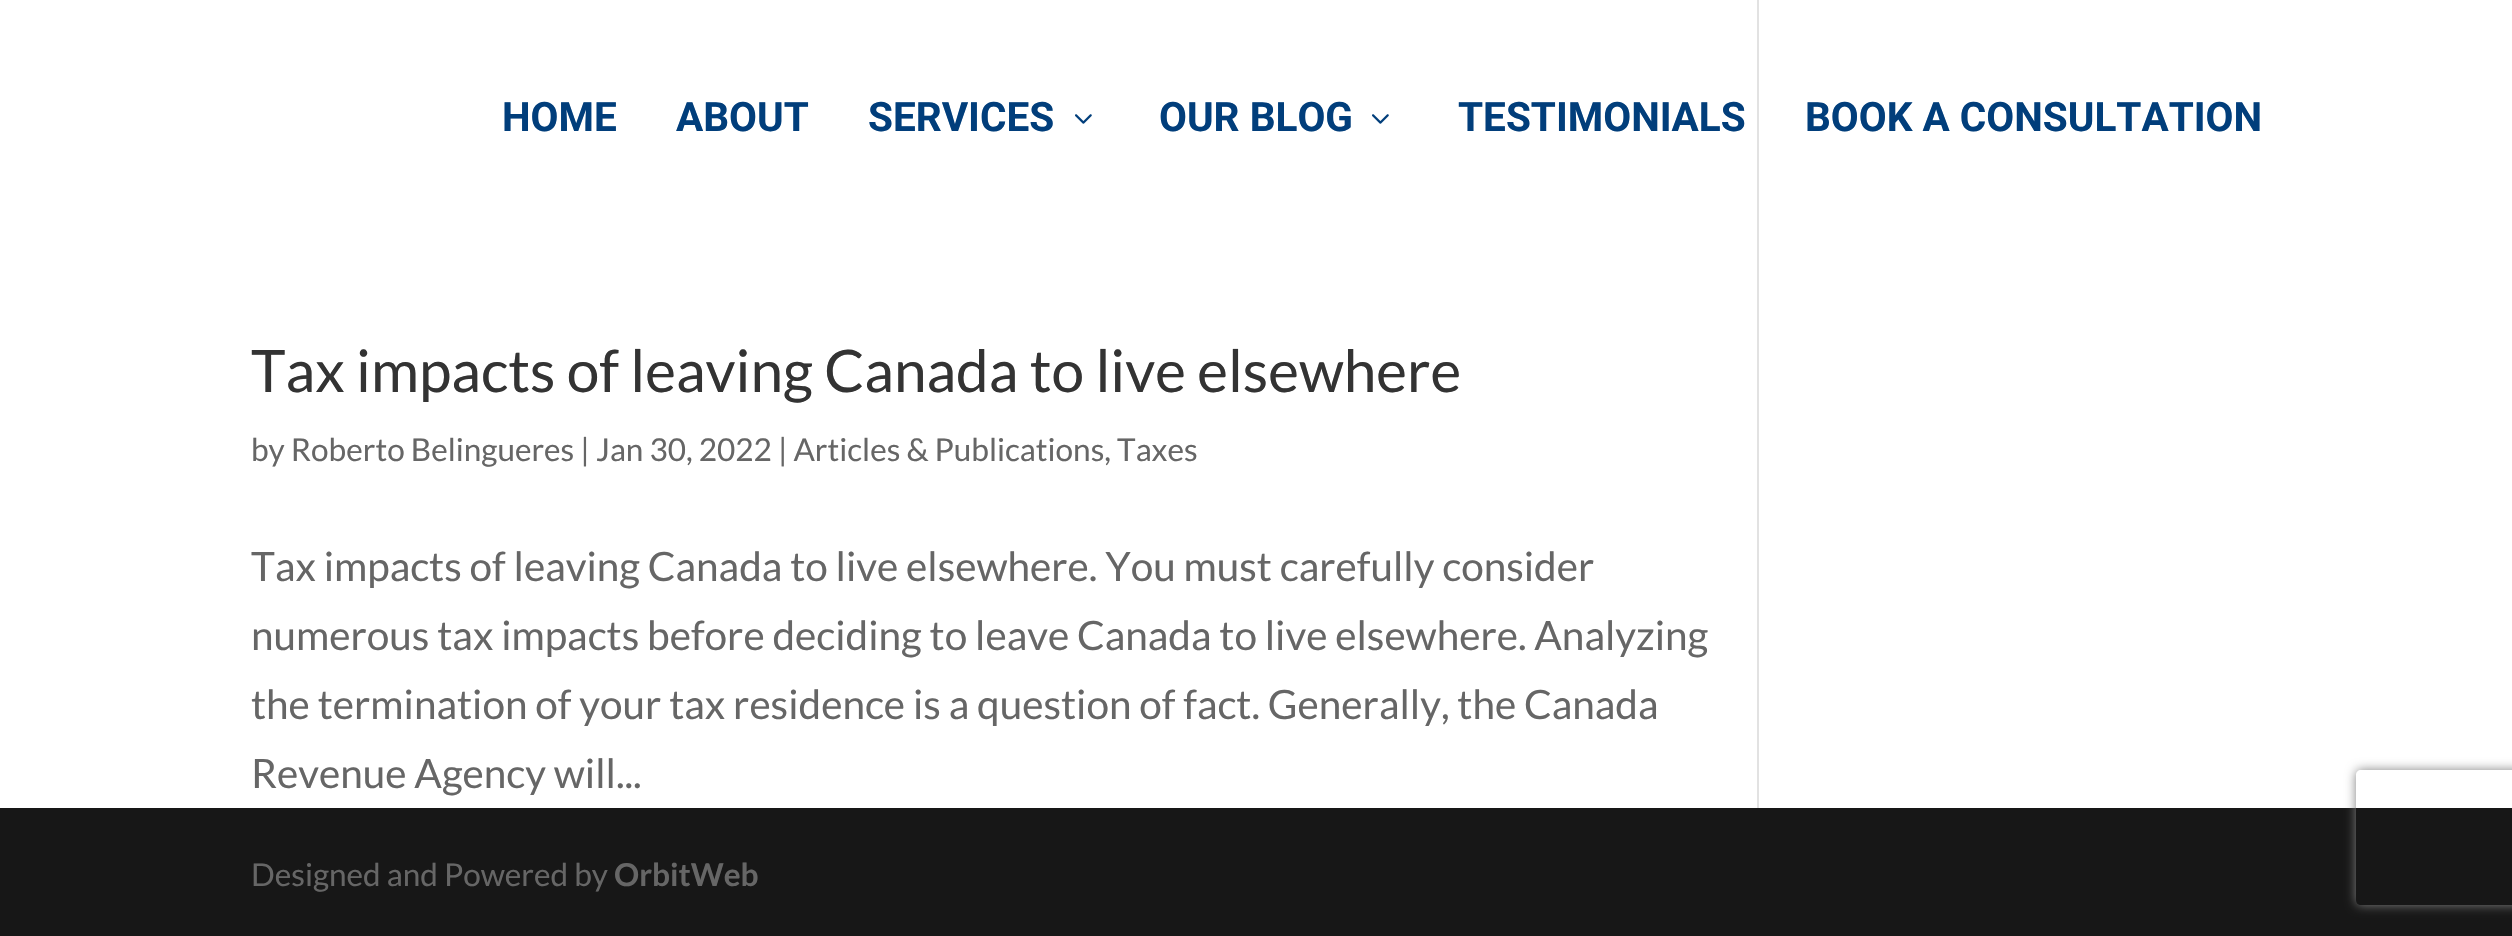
void draw(SkCanvas* canvas) {
	SkPaint paint;
	paint.setAntiAlias(true);
	auto svgPath = [&](const char* data, bool evenOdd = false) {
		SkPath result = *SkParsePath::FromSVGString(data);
		if (evenOdd) result.setFillType(SkPathFillType::kEvenOdd);
		return result;
	};
	canvas->clear(0xffffffff);
	SkFont f1(fontMgr->matchFamilyStyle("Roboto", SkFontStyle::Bold()), 40.5);
	f1.setSubpixel(true);
	paint.setColor(0xff013e7b);
	canvas->drawString("HOME", 502, 131, f1, paint);
	canvas->drawString("ABOUT", 676, 131, f1, paint);
	canvas->drawString("SERVICES", 868, 131, f1, paint);
	canvas->drawImageRect(SkImages::DeferredFromEncodedData(SkData::MakeFromFileName("img1.png")), SkRect::MakeXYWH(1075, 114, 17, 10), SkSamplingOptions());
	canvas->drawString("OUR BLOG", 1159, 131, f1, paint);
	canvas->drawImageRect(SkImages::DeferredFromEncodedData(SkData::MakeFromFileName("img1.png")), SkRect::MakeXYWH(1372, 114, 17, 10), SkSamplingOptions());
	canvas->drawString("TESTIMONIALS", 1458, 131, f1, paint);
	canvas->drawString("BOOK A CONSULTATION", 1805, 131, f1, paint);
	SkFont f2(fontMgr->matchFamilyStyle("Lato", SkFontStyle::Normal()), 58.5);
	f2.setSubpixel(true);
	paint.setColor(0xff333333);
	canvas->drawString("Tax impacts of leaving Canada to live elsewhere", 251, 392, f2, paint);
	SkFont f3(fontMgr->matchFamilyStyle("Lato", SkFontStyle::Normal()), 31.5);
	f3.setSubpixel(true);
	paint.setColor(0xff666666);
	canvas->drawString("by Roberto Belingueres | Jan 30, 2022 | Articles & Publications, Taxes", 251, 461, f3, paint);
	SkFont f4(fontMgr->matchFamilyStyle("Lato", SkFontStyle::Normal()), 40.5);
	f4.setSubpixel(true);
	canvas->drawString("Tax impacts of leaving Canada to live elsewhere. You must carefully consider", 251, 581, f4, paint);
	canvas->drawString("numerous tax impacts before deciding to leave Canada to live elsewhere. Analyzing", 251, 650, f4, paint);
	canvas->drawString("the termination of your tax residence is a question of fact. Generally, the Canada", 251, 719, f4, paint);
	canvas->drawString("Revenue Agency will...", 251, 788, f4, paint);
	paint.setColor(0xffe2e2e2);
	canvas->drawRect(SkRect::MakeXYWH(1757, 0, 2, 808), paint);
	paint.setColor(0xff171717);
	canvas->drawRect(SkRect::MakeXYWH(0, 808, 2512, 128), paint);
	paint.setColor(0xff666666);
	canvas->drawString("Designed and Powered by", 251, 886, f3, paint);
	SkFont f5(fontMgr->matchFamilyStyle("Lato", SkFontStyle::Bold()), 31.5);
	f5.setSubpixel(true);
	canvas->drawString("OrbitWeb", 614, 886, f5, paint);
	canvas->save();
	canvas->clipPath(svgPath("M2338 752H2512V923H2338ZM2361 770H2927C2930 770 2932 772 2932 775V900C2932 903 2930 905 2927 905H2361C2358 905 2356 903 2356 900V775C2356 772 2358 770 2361 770Z", true), true);
	paint.setColor(0xff808080);
	paint.setMaskFilter(SkMaskFilter::MakeBlur(kNormal_SkBlurStyle, 5.5));
	canvas->drawRoundRect(SkRect::MakeXYWH(2356, 770, 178, 135), 5, 5, paint);
	paint.setMaskFilter(nullptr);
	canvas->restore();
}
